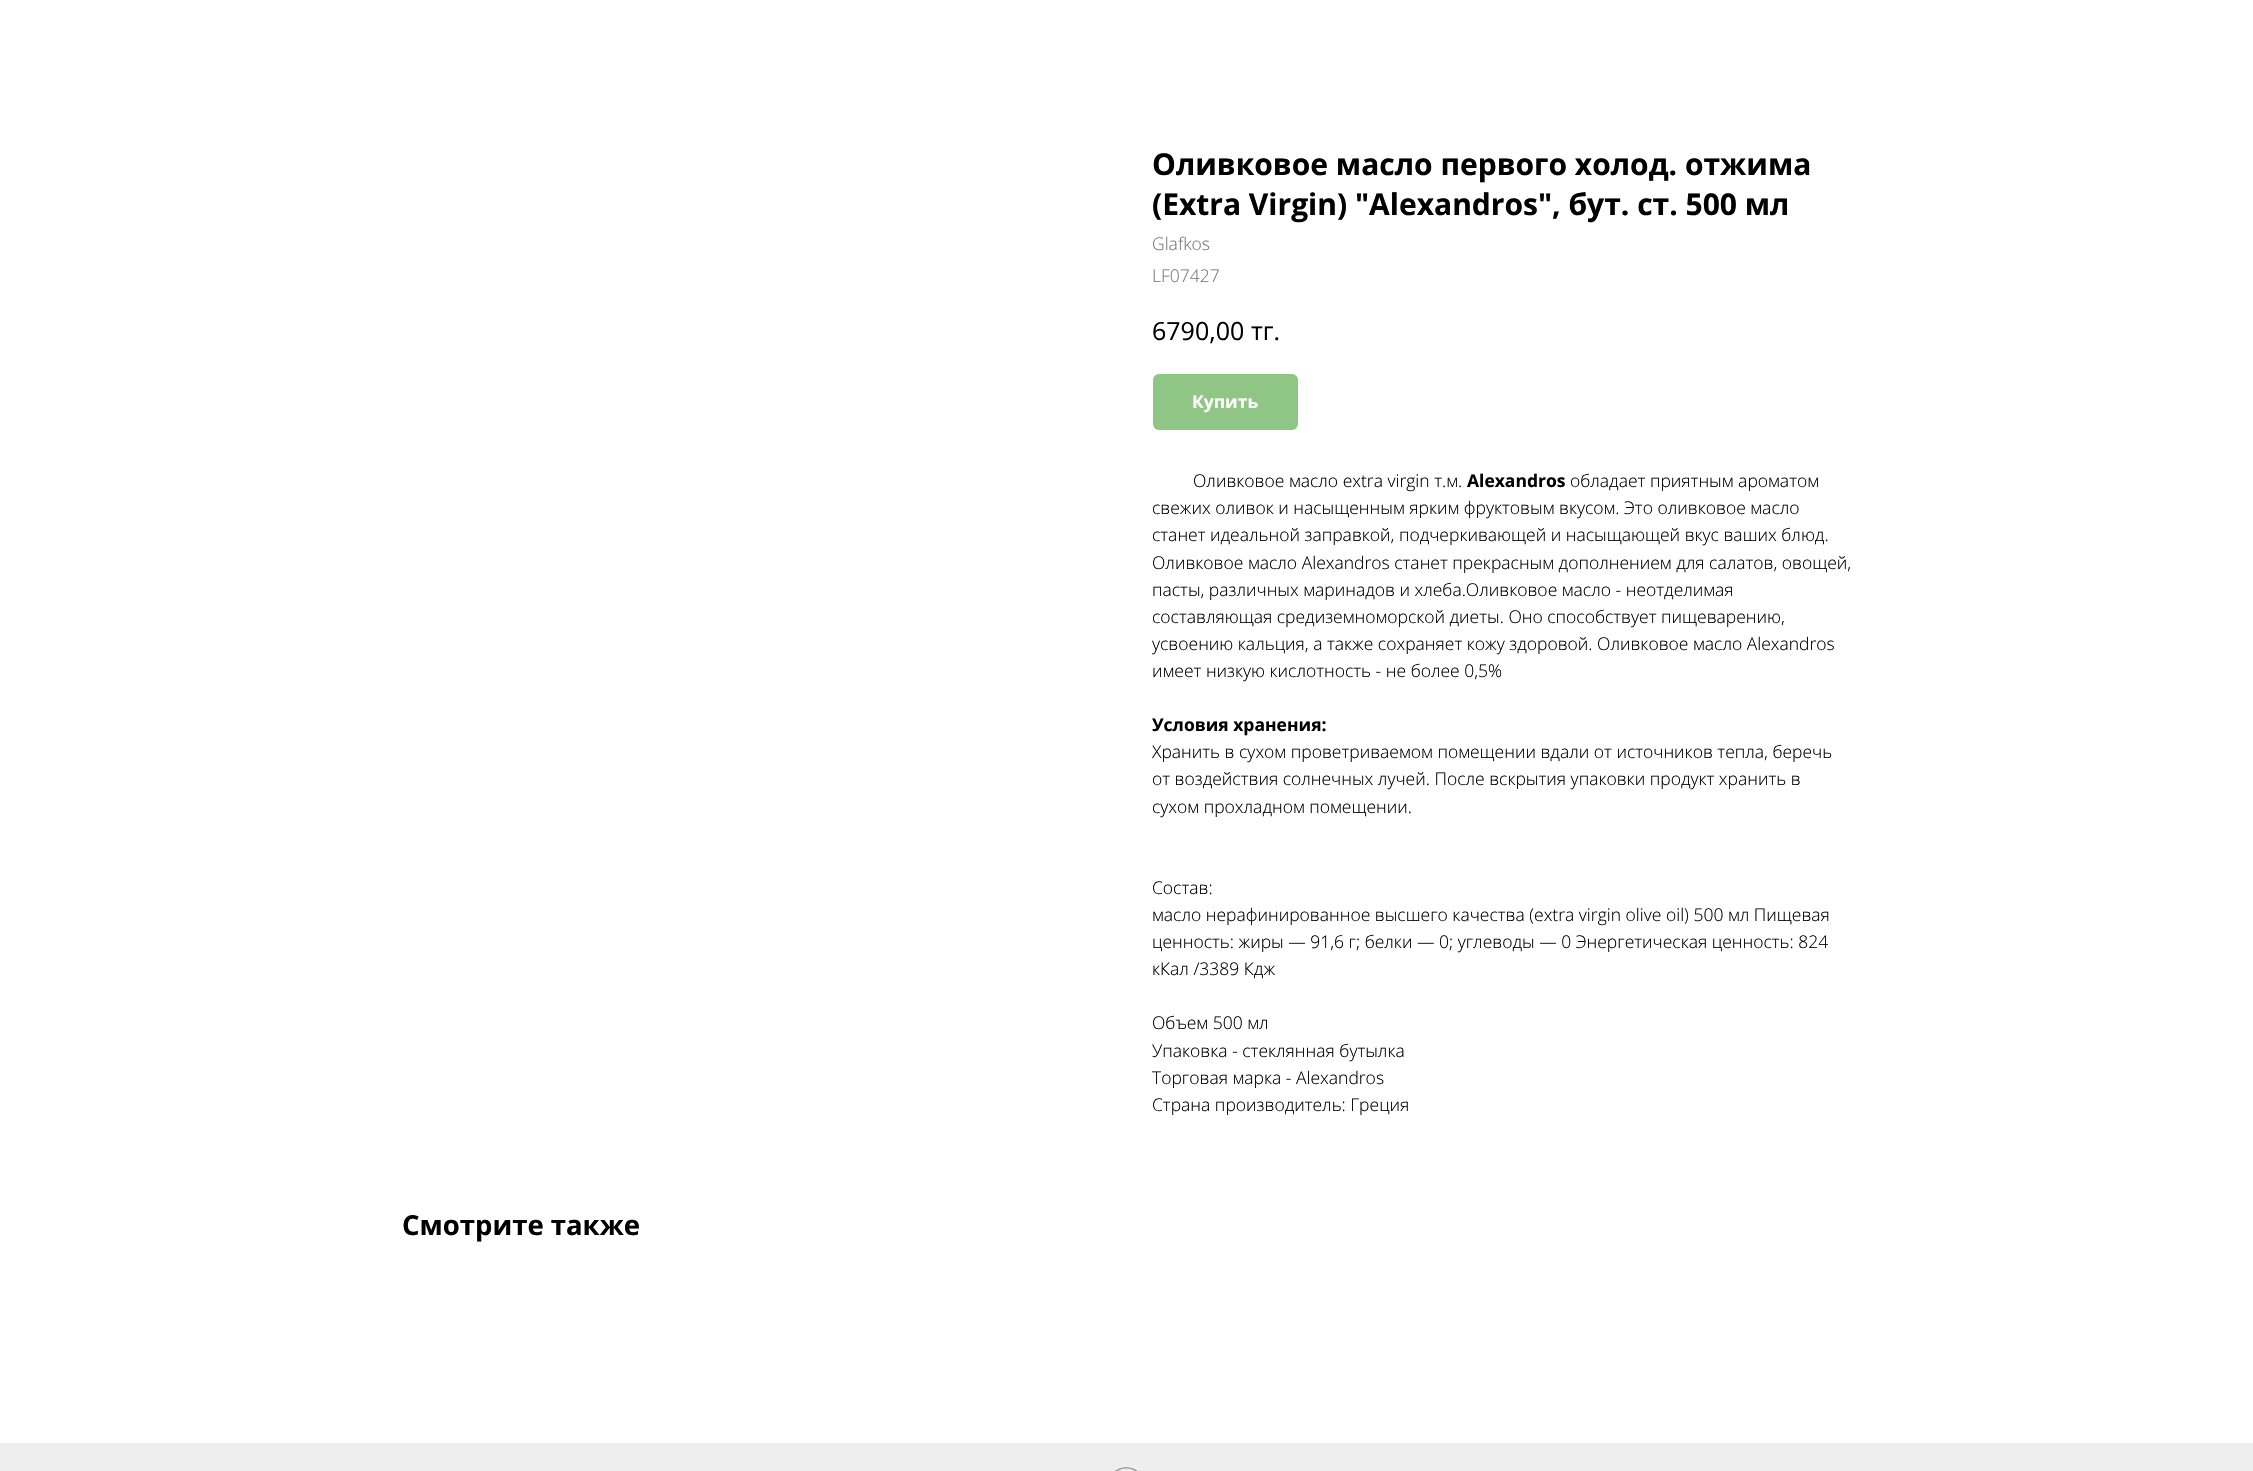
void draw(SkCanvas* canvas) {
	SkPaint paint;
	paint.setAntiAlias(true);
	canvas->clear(0xffffffff);
	SkFont f1(fontMgr->matchFamilyStyle("Open Sans", SkFontStyle::Bold()), 30);
	f1.setSubpixel(true);
	paint.setColor(0xff000000);
	canvas->drawString("Оливковое масло первого холод. отжима", 1152, 175, f1, paint);
	canvas->drawString("(Extra Virgin) \"Alexandros\", бут. ст. 500 мл", 1152, 215, f1, paint);
	SkFont f2(fontMgr->matchFamilyStyle("Open Sans", SkFontStyle(300, SkFontStyle::kNormal_Width, SkFontStyle::kUpright_Slant)), 17.5);
	f2.setSubpixel(true);
	paint.setColor(0xff777777);
	canvas->drawString("Glafkos", 1152, 250, f2, paint);
	canvas->drawString("LF07427", 1152, 282, f2, paint);
	SkFont f3(fontMgr->matchFamilyStyle("Open Sans", SkFontStyle::Normal()), 25);
	f3.setSubpixel(true);
	paint.setColor(0xff000000);
	canvas->drawString("6790,00", 1152, 340, f3, paint);
	canvas->drawString("тг.", 1251, 340, f3, paint);
	paint.setColor(0xff8fc685);
	canvas->drawRoundRect(SkRect::MakeXYWH(1153, 374, 145, 56), 6, 6, paint);
	SkFont f4(fontMgr->matchFamilyStyle("Open Sans", SkFontStyle::Bold()), 17.5);
	f4.setSubpixel(true);
	paint.setColor(0xffffffff);
	canvas->drawString("Купить", 1192, 408, f4, paint);
	paint.setColor(0xff000000);
	canvas->drawString("Оливковое масло extra virgin т.м.", 1193, 487, f2, paint);
	canvas->drawString("Alexandros", 1467, 487, f4, paint);
	canvas->drawString("обладает приятным ароматом", 1570, 487, f2, paint);
	canvas->drawString("свежих оливок и насыщенным ярким фруктовым вкусом. Это оливковое масло", 1152, 514, f2, paint);
	canvas->drawString("станет идеальной заправкой, подчеркивающей и насыщающей вкус ваших блюд.", 1152, 541, f2, paint);
	canvas->drawString("Оливковое масло Alexandros станет прекрасным дополнением для салатов, овощей,", 1152, 569, f2, paint);
	canvas->drawString("пасты, различных маринадов и хлеба.Оливковое масло - неотделимая", 1152, 596, f2, paint);
	canvas->drawString("составляющая средиземноморской диеты. Оно способствует пищеварению,", 1152, 623, f2, paint);
	canvas->drawString("усвоению кальция, а также сохраняет кожу здоровой. Оливковое масло Alexandros", 1152, 650, f2, paint);
	canvas->drawString("имеет низкую кислотность - не более 0,5%", 1152, 677, f2, paint);
	canvas->drawString("Условия хранения:", 1152, 731, f4, paint);
	canvas->drawString("Хранить в сухом проветриваемом помещении вдали от источников тепла, беречь", 1152, 758, f2, paint);
	canvas->drawString("от воздействия солнечных лучей. После вскрытия упаковки продукт хранить в", 1152, 785, f2, paint);
	canvas->drawString("сухом прохладном помещении.", 1152, 813, f2, paint);
	canvas->drawString("Состав:", 1152, 894, f2, paint);
	canvas->drawString("масло нерафинированное высшего качества (extra virgin olive oil) 500 мл Пищевая", 1152, 921, f2, paint);
	canvas->drawString("ценность: жиры — 91,6 г; белки — 0; углеводы — 0 Энергетическая ценность: 824", 1152, 948, f2, paint);
	canvas->drawString("кКал /3389 Кдж", 1152, 975, f2, paint);
	canvas->drawString("Объем 500 мл", 1152, 1029, f2, paint);
	canvas->drawString("Упаковка - стеклянная бутылка", 1152, 1057, f2, paint);
	canvas->drawString("Торговая марка - Alexandros", 1152, 1084, f2, paint);
	canvas->drawString("Страна производитель: Греция", 1152, 1111, f2, paint);
	SkFont f5(fontMgr->matchFamilyStyle("Open Sans", SkFontStyle::Bold()), 27.5);
	f5.setSubpixel(true);
	canvas->drawString("Смотрите также", 402, 1235, f5, paint);
	paint.setColor(0xffeeeeee);
	canvas->drawRect(SkRect::MakeXYWH(0, 1443, 2253, 28), paint);
	canvas->drawImageRect(SkImages::DeferredFromEncodedData(SkData::MakeFromFileName("img1.png")), SkRect::MakeXYWH(1115, 1467, 23, 4), SkSamplingOptions());
}
